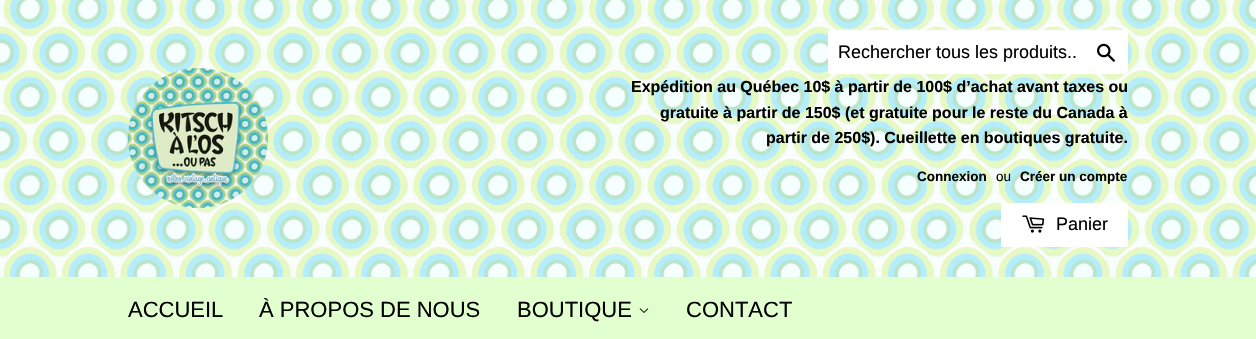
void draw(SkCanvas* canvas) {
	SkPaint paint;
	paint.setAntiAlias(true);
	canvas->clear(0xffffffff);
	canvas->drawImageRect(SkImages::DeferredFromEncodedData(SkData::MakeFromFileName("img1.png")), SkRect::MakeXYWH(0, 0, 1256, 277), SkSamplingOptions());
	canvas->drawImageRect(SkImages::DeferredFromEncodedData(SkData::MakeFromFileName("img2.png")), SkRect::MakeXYWH(128, 68, 140, 140), SkSamplingOptions());
	paint.setColor(0xffffffff);
	canvas->drawRoundRect(SkRect::MakeXYWH(828, 30, 300, 44), 2, 2, paint);
	SkFont f1(fontMgr->matchFamilyStyle("Liberation Sans", SkFontStyle::Normal()), 18);
	f1.setSubpixel(true);
	paint.setColor(0xff000000);
	canvas->drawString("Rechercher tous les produits..", 838, 58, f1, paint);
	canvas->drawImageRect(SkImages::DeferredFromEncodedData(SkData::MakeFromFileName("img3.png")), SkRect::MakeXYWH(1097, 43, 18, 19), SkSamplingOptions());
	SkFont f2(fontMgr->matchFamilyStyle("Liberation Sans", SkFontStyle::Bold()), 16);
	f2.setSubpixel(true);
	canvas->drawString("Expédition au Québec 10$ à partir de 100$ d’achat avant taxes ou", 631, 92, f2, paint);
	canvas->drawString("gratuite à partir de 150$ (et gratuite pour le reste du Canada à", 660, 118, f2, paint);
	canvas->drawString("partir de 250$). Cueillette en boutiques gratuite.", 766, 143, f2, paint);
	SkFont f3(fontMgr->matchFamilyStyle("Liberation Sans", SkFontStyle::Bold()), 13.5);
	f3.setSubpixel(true);
	canvas->drawString("Connexion", 917, 181, f3, paint);
	SkFont f4(fontMgr->matchFamilyStyle("Liberation Sans", SkFontStyle::Normal()), 13.5);
	f4.setSubpixel(true);
	canvas->drawString("ou", 996, 181, f4, paint);
	canvas->drawString("Créer un compte", 1020, 181, f3, paint);
	paint.setColor(0xffffffff);
	canvas->drawRoundRect(SkRect::MakeXYWH(1001, 203, 127, 44), 2, 2, paint);
	canvas->drawImageRect(SkImages::DeferredFromEncodedData(SkData::MakeFromFileName("img4.png")), SkRect::MakeXYWH(1022, 215, 23, 18), SkSamplingOptions());
	paint.setColor(0xff000000);
	canvas->drawString("Panier", 1056, 230, f1, paint);
	paint.setColor(0xffe2ffcf);
	canvas->drawRect(SkRect::MakeXYWH(0, 277, 1256, 62), paint);
	SkFont f5(fontMgr->matchFamilyStyle("Liberation Sans", SkFontStyle::Normal()), 22);
	f5.setSubpixel(true);
	paint.setColor(0xff000000);
	canvas->drawString("ACCUEIL", 128, 317, f5, paint);
	canvas->drawString("À PROPOS DE NOUS", 259, 317, f5, paint);
	canvas->drawString("BOUTIQUE", 517, 317, f5, paint);
	canvas->drawImageRect(SkImages::DeferredFromEncodedData(SkData::MakeFromFileName("img5.png")), SkRect::MakeXYWH(639, 308, 10, 5), SkSamplingOptions());
	canvas->drawString("CONTACT", 686, 317, f5, paint);
}
